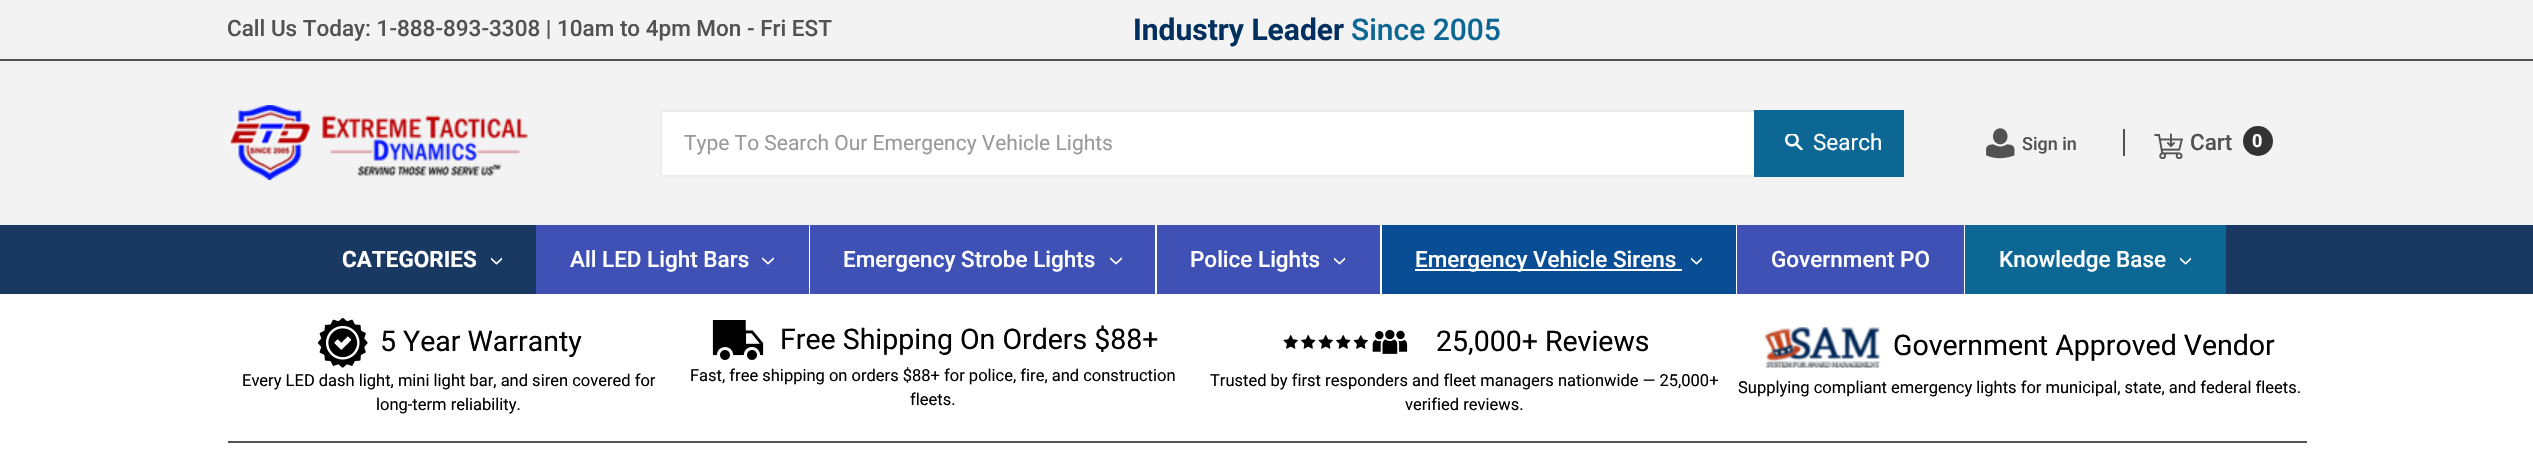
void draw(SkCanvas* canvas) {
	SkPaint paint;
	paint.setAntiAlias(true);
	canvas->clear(0xffffffff);
	paint.setColor(0xfff3f3f3);
	canvas->drawRect(SkRect::MakeXYWH(0, 0, 2533, 225), paint);
	paint.setColor(0xff525252);
	canvas->drawRect(SkRect::MakeXYWH(0, 59, 2533, 2), paint);
	SkFont f1(fontMgr->matchFamilyStyle("Roboto", SkFontStyle(500, SkFontStyle::kNormal_Width, SkFontStyle::kUpright_Slant)), 22.5);
	f1.setSubpixel(true);
	canvas->drawString("Call Us Today: 1-888-893-3308 | 10am to 4pm Mon - Fri EST", 227, 36, f1, paint);
	SkFont f2(fontMgr->matchFamilyStyle("Roboto", SkFontStyle::Bold()), 30);
	f2.setSubpixel(true);
	paint.setColor(0xff012f5e);
	canvas->drawString("Industry Leader", 1133, 40, f2, paint);
	SkFont f3(fontMgr->matchFamilyStyle("Roboto", SkFontStyle(500, SkFontStyle::kNormal_Width, SkFontStyle::kUpright_Slant)), 30);
	f3.setSubpixel(true);
	paint.setColor(0xff0d6795);
	canvas->drawString("Since 2005", 1351, 40, f3, paint);
	canvas->drawImageRect(SkImages::DeferredFromEncodedData(SkData::MakeFromFileName("img1.png")), SkRect::MakeXYWH(228, 105, 300, 75), SkSamplingOptions());
	paint.setColor(0xffffffff);
	canvas->drawRect(SkRect::MakeXYWH(662, 112, 1092, 63), paint);
	paint.setStroke(true);
	paint.setStrokeWidth(2);
	paint.setColor(0xffececec);
	canvas->drawRect(SkRect::MakeXYWH(661, 111, 1242, 65), paint);
	SkFont f4(fontMgr->matchFamilyStyle("Roboto", SkFontStyle::Normal()), 21);
	f4.setSubpixel(true);
	paint.setStroke(false);
	paint.setColor(0xff999999);
	canvas->drawString("Type To Search Our Emergency Vehicle Lights", 684, 150, f4, paint);
	paint.setColor(0xff0d6795);
	canvas->drawRect(SkRect::MakeXYWH(1754, 110, 150, 67), paint);
	canvas->drawImageRect(SkImages::DeferredFromEncodedData(SkData::MakeFromFileName("img2.png")), SkRect::MakeXYWH(1785, 134, 18, 16), SkSamplingOptions());
	SkFont f5(fontMgr->matchFamilyStyle("Roboto", SkFontStyle::Normal()), 22.5);
	f5.setSubpixel(true);
	paint.setColor(0xffffffff);
	canvas->drawString("Search", 1813, 150, f5, paint);
	canvas->drawImageRect(SkImages::DeferredFromEncodedData(SkData::MakeFromFileName("img3.png")), SkRect::MakeXYWH(1986, 128, 29, 31), SkSamplingOptions());
	SkFont f6(fontMgr->matchFamilyStyle("Roboto", SkFontStyle(500, SkFontStyle::kNormal_Width, SkFontStyle::kUpright_Slant)), 18);
	f6.setSubpixel(true);
	paint.setColor(0xff525252);
	canvas->drawString("Sign in", 2022, 150, f6, paint);
	canvas->drawRect(SkRect::MakeXYWH(2123, 129, 2, 27), paint);
	canvas->drawImageRect(SkImages::DeferredFromEncodedData(SkData::MakeFromFileName("img4.png")), SkRect::MakeXYWH(2154, 133, 29, 26), SkSamplingOptions());
	canvas->drawString("Cart", 2190, 150, f1, paint);
	paint.setColor(0xff333333);
	canvas->drawCircle(2258, 141, 15, paint);
	SkFont f7(fontMgr->matchFamilyStyle("Roboto", SkFontStyle::Bold()), 18);
	f7.setSubpixel(true);
	paint.setColor(0xffffffff);
	canvas->drawString("0", 2252, 147, f7, paint);
	paint.setColor(0xff193862);
	canvas->drawRect(SkRect::MakeXYWH(0, 225, 2533, 69), paint);
	SkFont f8(fontMgr->matchFamilyStyle("Roboto", SkFontStyle::Bold()), 22.5);
	f8.setSubpixel(true);
	paint.setColor(0xffffffff);
	canvas->drawString("CATEGORIES", 342, 267, f8, paint);
	canvas->drawImageRect(SkImages::DeferredFromEncodedData(SkData::MakeFromFileName("img5.png")), SkRect::MakeXYWH(491, 257, 11, 8), SkSamplingOptions());
	paint.setColor(0xff3f51b5);
	canvas->drawRect(SkRect::MakeXYWH(536, 225, 273, 69), paint);
	paint.setColor(0xffffffff);
	canvas->drawRect(SkRect::MakeXYWH(809, 225, 1, 69), paint);
	canvas->drawString("All LED Light Bars", 570, 267, f1, paint);
	canvas->drawImageRect(SkImages::DeferredFromEncodedData(SkData::MakeFromFileName("img6.png")), SkRect::MakeXYWH(762, 257, 12, 8), SkSamplingOptions());
	paint.setColor(0xff3f51b5);
	canvas->drawRect(SkRect::MakeXYWH(810, 225, 345, 69), paint);
	paint.setColor(0xffffffff);
	canvas->drawRect(SkRect::MakeXYWH(1155, 225, 2, 69), paint);
	canvas->drawString("Emergency Strobe Lights", 843, 267, f1, paint);
	canvas->drawImageRect(SkImages::DeferredFromEncodedData(SkData::MakeFromFileName("img6.png")), SkRect::MakeXYWH(1110, 257, 12, 8), SkSamplingOptions());
	paint.setColor(0xff3f51b5);
	canvas->drawRect(SkRect::MakeXYWH(1157, 225, 223, 69), paint);
	paint.setColor(0xffffffff);
	canvas->drawRect(SkRect::MakeXYWH(1380, 225, 2, 69), paint);
	canvas->drawString("Police Lights", 1190, 267, f1, paint);
	canvas->drawImageRect(SkImages::DeferredFromEncodedData(SkData::MakeFromFileName("img7.png")), SkRect::MakeXYWH(1334, 257, 11, 8), SkSamplingOptions());
	paint.setColor(0xff094e94);
	canvas->drawRect(SkRect::MakeXYWH(1382, 225, 354, 69), paint);
	paint.setColor(0xffffffff);
	canvas->drawRect(SkRect::MakeXYWH(1736, 225, 1, 69), paint);
	canvas->drawRect(SkRect::MakeXYWH(1415, 269, 267, 2), paint);
	canvas->drawString("Emergency Vehicle Sirens", 1415, 267, f1, paint);
	canvas->drawImageRect(SkImages::DeferredFromEncodedData(SkData::MakeFromFileName("img8.png")), SkRect::MakeXYWH(1691, 257, 11, 8), SkSamplingOptions());
	paint.setColor(0xff3f51b5);
	canvas->drawRect(SkRect::MakeXYWH(1737, 225, 227, 69), paint);
	paint.setColor(0xffffffff);
	canvas->drawRect(SkRect::MakeXYWH(1964, 225, 1, 69), paint);
	canvas->drawString("Government PO", 1771, 267, f1, paint);
	paint.setColor(0xff0d6795);
	canvas->drawRect(SkRect::MakeXYWH(1965, 225, 261, 69), paint);
	paint.setColor(0xffffffff);
	canvas->drawString("Knowledge Base", 1999, 267, f1, paint);
	canvas->drawImageRect(SkImages::DeferredFromEncodedData(SkData::MakeFromFileName("img9.png")), SkRect::MakeXYWH(2180, 257, 11, 8), SkSamplingOptions());
	canvas->drawImageRect(SkImages::DeferredFromEncodedData(SkData::MakeFromFileName("img10.png")), SkRect::MakeXYWH(317, 317, 51, 51), SkSamplingOptions());
	SkFont f9(fontMgr->matchFamilyStyle("Roboto", SkFontStyle::Normal()), 28.5);
	f9.setSubpixel(true);
	paint.setColor(0xff000000);
	canvas->drawString("5 Year Warranty", 380, 351, f9, paint);
	SkFont f10(fontMgr->matchFamilyStyle("Roboto", SkFontStyle::Normal()), 16.5);
	f10.setSubpixel(true);
	canvas->drawString("Every LED dash light, mini light bar, and siren covered for", 242, 386, f10, paint);
	canvas->drawString("long-term reliability.", 376, 410, f10, paint);
	canvas->drawImageRect(SkImages::DeferredFromEncodedData(SkData::MakeFromFileName("img11.png")), SkRect::MakeXYWH(712, 320, 52, 40), SkSamplingOptions());
	canvas->drawString("Free Shipping On Orders $88+", 780, 349, f9, paint);
	canvas->drawString("Fast, free shipping on orders $88+ for police, fire, and construction", 690, 381, f10, paint);
	canvas->drawString("fleets.", 910, 405, f10, paint);
	canvas->drawImageRect(SkImages::DeferredFromEncodedData(SkData::MakeFromFileName("img12.png")), SkRect::MakeXYWH(1283, 329, 125, 25), SkSamplingOptions());
	canvas->drawString("25,000+ Reviews", 1436, 351, f9, paint);
	canvas->drawString("Trusted by first responders and fleet managers nationwide — 25,000+", 1210, 386, f10, paint);
	canvas->drawString("verified reviews.", 1405, 410, f10, paint);
	canvas->drawImageRect(SkImages::DeferredFromEncodedData(SkData::MakeFromFileName("img13.png")), SkRect::MakeXYWH(1764, 327, 117, 41), SkSamplingOptions());
	canvas->drawString("Government Approved Vendor", 1893, 355, f9, paint);
	canvas->drawString("Supplying compliant emergency lights for municipal, state, and federal fleets.", 1738, 393, f10, paint);
	paint.setColor(0xff525252);
	canvas->drawRect(SkRect::MakeXYWH(228, 441, 2079, 2), paint);
}
